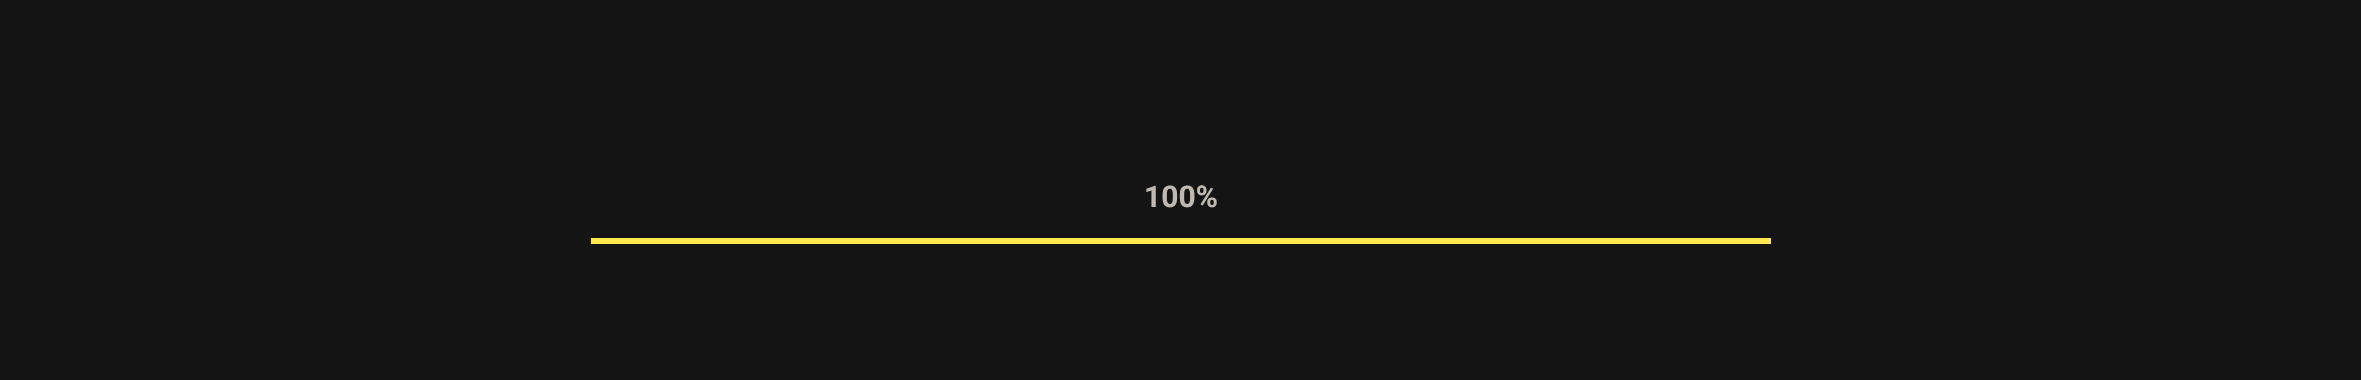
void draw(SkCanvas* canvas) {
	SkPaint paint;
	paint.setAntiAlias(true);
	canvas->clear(0xff141414);
	SkFont f1(fontMgr->matchFamilyStyle("Roboto", SkFontStyle::Bold()), 30);
	f1.setSubpixel(true);
	paint.setColor(0xffbfb9b1);
	canvas->drawString("100%", 1144, 207, f1, paint);
	paint.setColor(0xffffe74d);
	canvas->drawRect(SkRect::MakeXYWH(591, 238, 1180, 6), paint);
}
